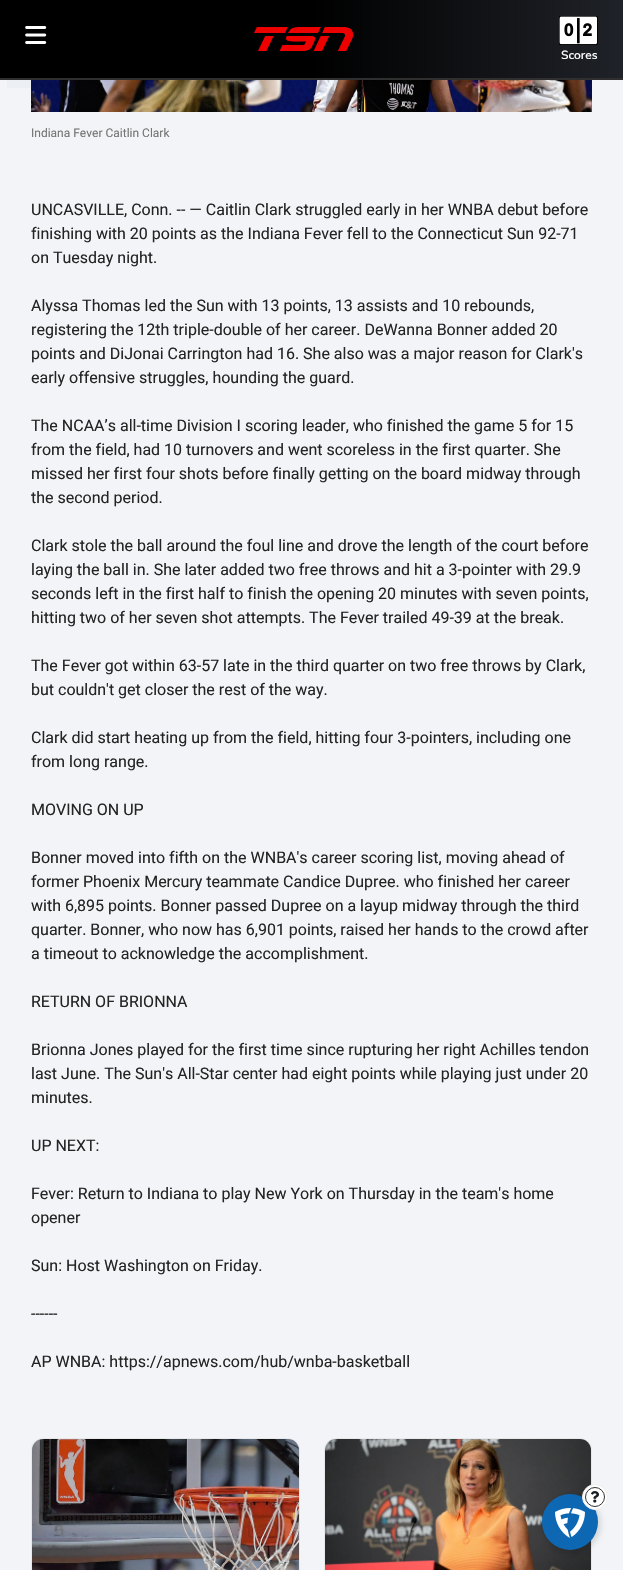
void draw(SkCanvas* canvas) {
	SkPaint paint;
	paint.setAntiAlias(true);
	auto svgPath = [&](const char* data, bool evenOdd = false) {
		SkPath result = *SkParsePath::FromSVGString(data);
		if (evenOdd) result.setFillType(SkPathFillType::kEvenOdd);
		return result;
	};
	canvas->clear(0xfff2f4f7);
	paint.setColor(0xffeceff3);
	canvas->drawPath(svgPath("M7-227V88H31V-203H568V-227Z"), paint);
	{
		const SkColor colors[] = {0xff000000, 0xff1f2228};
		const float stops[] = {0.5, 1};
		const SkPoint ends[] = {{0, 39}, {623, 39}};
		paint.setShader(SkGradientShader::MakeLinear(ends, colors, stops, 2, SkTileMode::kClamp));
		paint.setAlpha(255);
	}
	canvas->drawRect(SkRect::MakeXYWH(0, 0, 623, 78), paint);
	paint.setShader(nullptr);
	paint.setColor(0xff2f2f2f);
	canvas->drawRect(SkRect::MakeXYWH(0, 78, 623, 2), paint);
	canvas->drawImageRect(SkImages::DeferredFromEncodedData(SkData::MakeFromFileName("img1.png")), SkRect::MakeXYWH(25, 26, 22, 18), SkSamplingOptions());
	canvas->drawImageRect(SkImages::DeferredFromEncodedData(SkData::MakeFromFileName("img2.png")), SkRect::MakeXYWH(254, 27, 100, 24), SkSamplingOptions());
	canvas->drawImageRect(SkImages::DeferredFromEncodedData(SkData::MakeFromFileName("img3.png")), SkRect::MakeXYWH(559, 16, 39, 29), SkSamplingOptions());
	SkFont f1(fontMgr->matchFamilyStyle("Nunito Sans", SkFontStyle(600, SkFontStyle::kNormal_Width, SkFontStyle::kUpright_Slant)), 12);
	f1.setSubpixel(true);
	paint.setColor(0xffffffff);
	canvas->drawString("Scores", 561, 59, f1, paint);
	canvas->drawImageRect(SkImages::DeferredFromEncodedData(SkData::MakeFromFileName("img4.png")), SkRect::MakeXYWH(31, 80, 561, 32), SkSamplingOptions());
	SkFont f2(fontMgr->matchFamilyStyle("Roboto", SkFontStyle::Normal()), 12);
	f2.setSubpixel(true);
	paint.setColor(0xff757575);
	canvas->drawString("Indiana Fever Caitlin Clark", 31, 137, f2, paint);
	SkFont f3(fontMgr->matchFamilyStyle("Roboto", SkFontStyle::Normal()), 16);
	f3.setSubpixel(true);
	paint.setColor(0xff242424);
	canvas->drawString("UNCASVILLE, Conn. -- — Caitlin Clark struggled early in her WNBA debut before", 31, 215, f3, paint);
	canvas->drawString("finishing with 20 points as the Indiana Fever fell to the Connecticut Sun 92-71", 31, 239, f3, paint);
	canvas->drawString("on Tuesday night.", 31, 263, f3, paint);
	canvas->drawString("Alyssa Thomas led the Sun with 13 points, 13 assists and 10 rebounds,", 31, 311, f3, paint);
	canvas->drawString("registering the 12th triple-double of her career. DeWanna Bonner added 20", 31, 335, f3, paint);
	canvas->drawString("points and DiJonai Carrington had 16. She also was a major reason for Clark's", 31, 359, f3, paint);
	canvas->drawString("early offensive struggles, hounding the guard.", 31, 383, f3, paint);
	canvas->drawString("The NCAA’s all-time Division I scoring leader, who finished the game 5 for 15", 31, 431, f3, paint);
	canvas->drawString("from the field, had 10 turnovers and went scoreless in the first quarter. She", 31, 455, f3, paint);
	canvas->drawString("missed her first four shots before finally getting on the board midway through", 31, 479, f3, paint);
	canvas->drawString("the second period.", 31, 503, f3, paint);
	canvas->drawString("Clark stole the ball around the foul line and drove the length of the court before", 31, 551, f3, paint);
	canvas->drawString("laying the ball in. She later added two free throws and hit a 3-pointer with 29.9", 31, 575, f3, paint);
	canvas->drawString("seconds left in the first half to finish the opening 20 minutes with seven points,", 31, 599, f3, paint);
	canvas->drawString("hitting two of her seven shot attempts. The Fever trailed 49-39 at the break.", 31, 623, f3, paint);
	canvas->drawString("The Fever got within 63-57 late in the third quarter on two free throws by Clark,", 31, 671, f3, paint);
	canvas->drawString("but couldn't get closer the rest of the way.", 31, 695, f3, paint);
	canvas->drawString("Clark did start heating up from the field, hitting four 3-pointers, including one", 31, 743, f3, paint);
	canvas->drawString("from long range.", 31, 767, f3, paint);
	canvas->drawString("MOVING ON UP", 31, 815, f3, paint);
	canvas->drawString("Bonner moved into fifth on the WNBA's career scoring list, moving ahead of", 31, 863, f3, paint);
	canvas->drawString("former Phoenix Mercury teammate Candice Dupree. who finished her career", 31, 887, f3, paint);
	canvas->drawString("with 6,895 points. Bonner passed Dupree on a layup midway through the third", 31, 911, f3, paint);
	canvas->drawString("quarter. Bonner, who now has 6,901 points, raised her hands to the crowd after", 31, 935, f3, paint);
	canvas->drawString("a timeout to acknowledge the accomplishment.", 31, 959, f3, paint);
	canvas->drawString("RETURN OF BRIONNA", 31, 1007, f3, paint);
	canvas->drawString("Brionna Jones played for the first time since rupturing her right Achilles tendon", 31, 1055, f3, paint);
	canvas->drawString("last June. The Sun's All-Star center had eight points while playing just under 20", 31, 1079, f3, paint);
	canvas->drawString("minutes.", 31, 1103, f3, paint);
	canvas->drawString("UP NEXT:", 31, 1151, f3, paint);
	canvas->drawString("Fever: Return to Indiana to play New York on Thursday in the team's home", 31, 1199, f3, paint);
	canvas->drawString("opener", 31, 1223, f3, paint);
	canvas->drawString("Sun: Host Washington on Friday.", 31, 1271, f3, paint);
	canvas->drawString("------", 31, 1319, f3, paint);
	canvas->drawString("AP WNBA: https://apnews.com/hub/wnba-basketball", 31, 1367, f3, paint);
	paint.setStroke(true);
	paint.setStrokeWidth(1);
	paint.setColor(0xffe6e8ea);
	canvas->drawRoundRect(SkRect::MakeXYWH(31.5, 1438.5, 268, 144), 11.5, 11.5, paint);
	canvas->drawImageRect(SkImages::DeferredFromEncodedData(SkData::MakeFromFileName("img5.png")), SkRect::MakeXYWH(32, 1439, 267, 131), SkSamplingOptions());
	canvas->drawRoundRect(SkRect::MakeXYWH(324.5, 1438.5, 267, 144), 11.5, 11.5, paint);
	canvas->drawImageRect(SkImages::DeferredFromEncodedData(SkData::MakeFromFileName("img6.png")), SkRect::MakeXYWH(325, 1439, 266, 131), SkSamplingOptions());
	paint.setStroke(false);
	paint.setColor(0x1f000000);
	paint.setMaskFilter(SkMaskFilter::MakeBlur(kNormal_SkBlurStyle, 2.5));
	canvas->drawRoundRect(SkRect::MakeXYWH(541, 1494, 60, 60), 30, 30, paint);
	paint.setMaskFilter(nullptr);
	paint.setColor(0xff0e67b3);
	canvas->drawCircle(570, 1522, 28, paint);
	canvas->drawImageRect(SkImages::DeferredFromEncodedData(SkData::MakeFromFileName("img8.png")), SkRect::MakeXYWH(555, 1508, 30, 30), SkSamplingOptions());
	paint.setColor(0xffffffff);
	canvas->drawCircle(595, 1497, 12.5, paint);
	paint.setStroke(true);
	paint.setColor(0xffefefef);
	canvas->drawCircle(595, 1497, 12.5, paint);
	canvas->drawImageRect(SkImages::DeferredFromEncodedData(SkData::MakeFromFileName("img7.png")), SkRect::MakeXYWH(591, 1491, 8, 12), SkSamplingOptions());
	paint.setColor(0xff323232);
	canvas->drawCircle(595, 1497, 9.5, paint);
}
